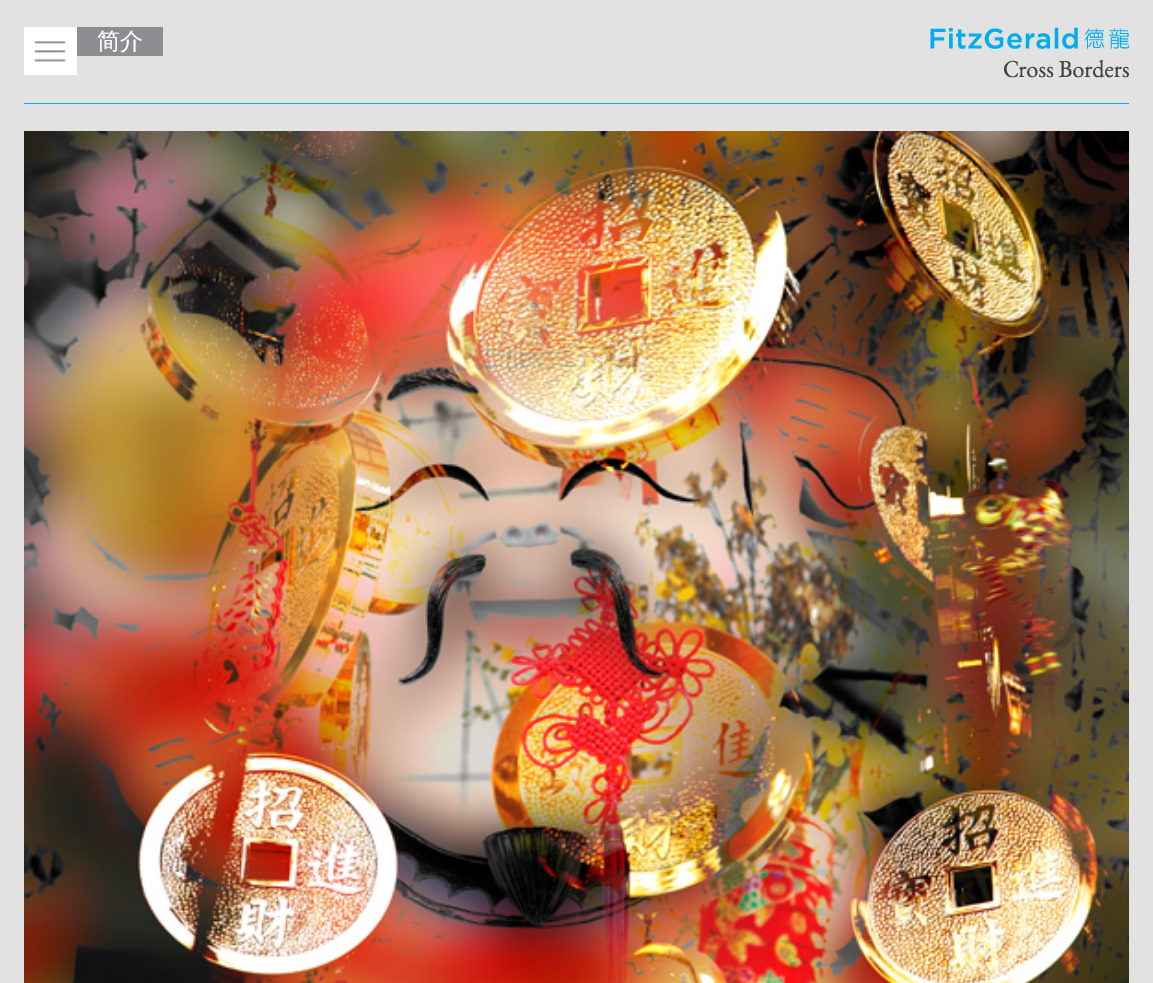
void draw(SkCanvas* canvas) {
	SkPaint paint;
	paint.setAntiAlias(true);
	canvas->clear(0xffe2e2e2);
	paint.setColor(0xff00adee);
	canvas->drawRect(SkRect::MakeXYWH(24, 103, 1105, 1), paint);
	canvas->drawImageRect(SkImages::DeferredFromEncodedData(SkData::MakeFromFileName("img1.png")), SkRect::MakeXYWH(24, 27, 53, 48), SkSamplingOptions());
	paint.setColor(0xff8b8d91);
	canvas->drawRect(SkRect::MakeXYWH(77, 27, 86, 29), paint);
	SkFont f1(fontMgr->matchFamilyStyle("WenQuanYi Zen Hei", SkFontStyle(500, SkFontStyle::kNormal_Width, SkFontStyle::kUpright_Slant)), 23);
	f1.setSubpixel(true);
	paint.setColor(0xffffffff);
	canvas->drawString("简介", 97, 49, f1, paint);
	canvas->drawImageRect(SkImages::DeferredFromEncodedData(SkData::MakeFromFileName("img2.png")), SkRect::MakeXYWH(930, 27, 199, 51), SkSamplingOptions());
	canvas->drawImageRect(SkImages::DeferredFromEncodedData(SkData::MakeFromFileName("img3.png")), SkRect::MakeXYWH(24, 131, 1105, 852), SkSamplingOptions());
}
